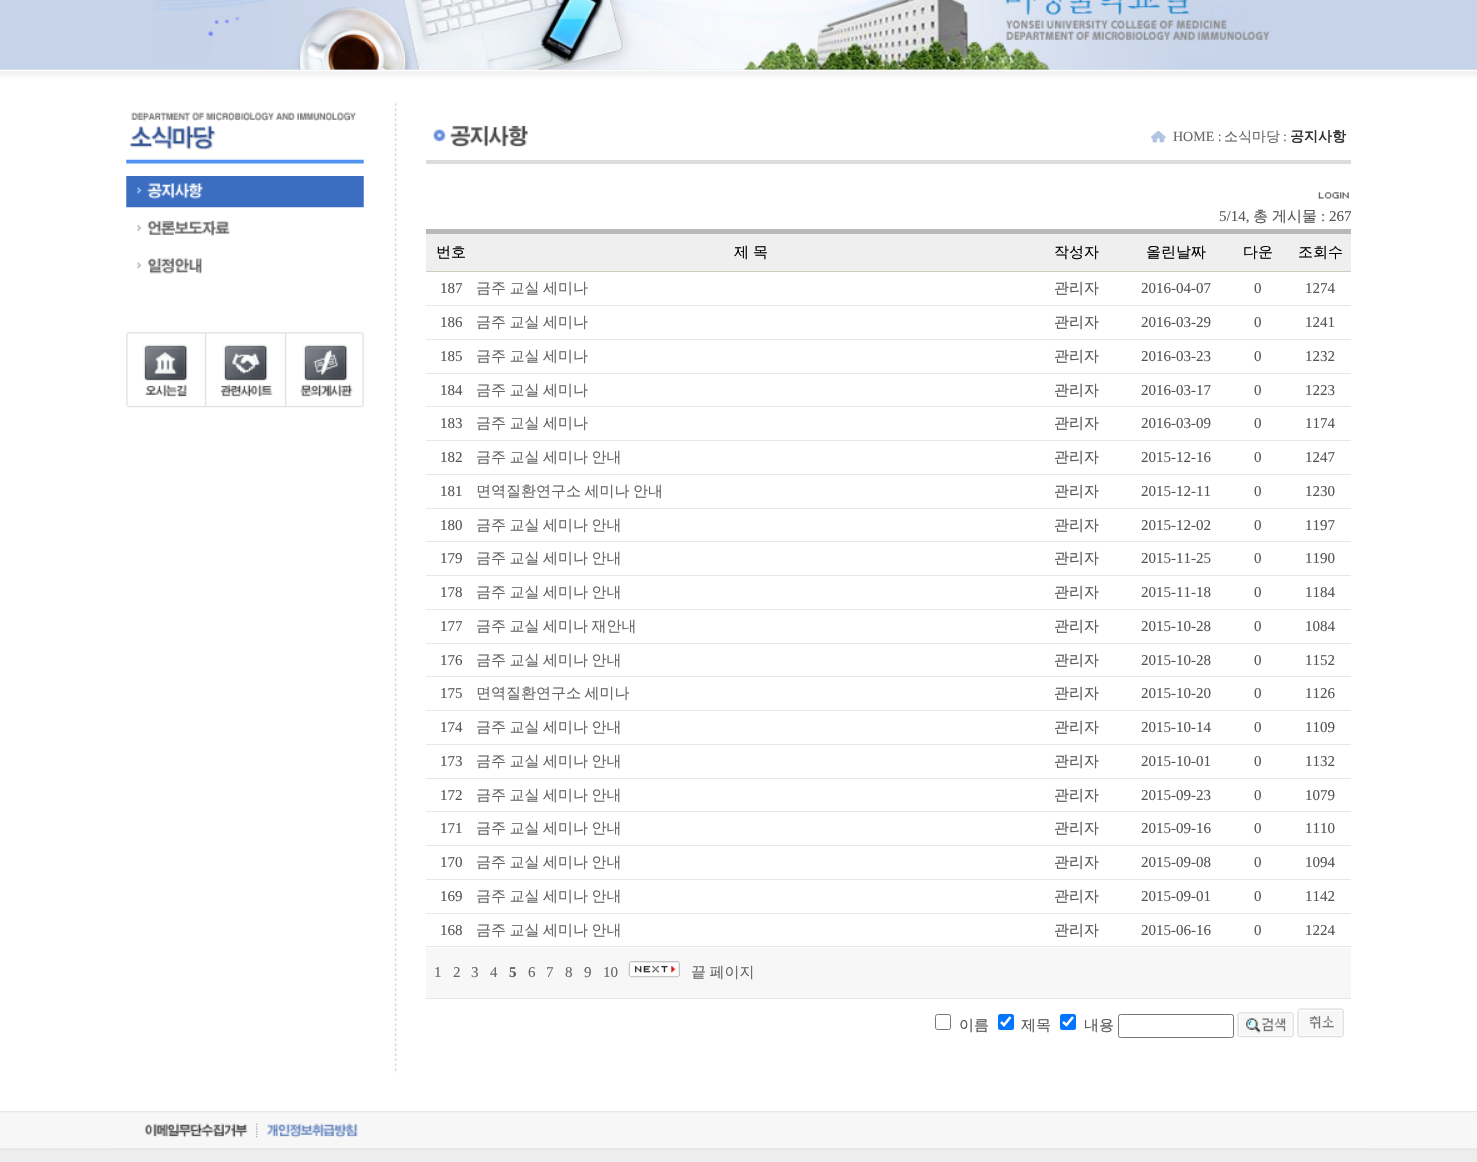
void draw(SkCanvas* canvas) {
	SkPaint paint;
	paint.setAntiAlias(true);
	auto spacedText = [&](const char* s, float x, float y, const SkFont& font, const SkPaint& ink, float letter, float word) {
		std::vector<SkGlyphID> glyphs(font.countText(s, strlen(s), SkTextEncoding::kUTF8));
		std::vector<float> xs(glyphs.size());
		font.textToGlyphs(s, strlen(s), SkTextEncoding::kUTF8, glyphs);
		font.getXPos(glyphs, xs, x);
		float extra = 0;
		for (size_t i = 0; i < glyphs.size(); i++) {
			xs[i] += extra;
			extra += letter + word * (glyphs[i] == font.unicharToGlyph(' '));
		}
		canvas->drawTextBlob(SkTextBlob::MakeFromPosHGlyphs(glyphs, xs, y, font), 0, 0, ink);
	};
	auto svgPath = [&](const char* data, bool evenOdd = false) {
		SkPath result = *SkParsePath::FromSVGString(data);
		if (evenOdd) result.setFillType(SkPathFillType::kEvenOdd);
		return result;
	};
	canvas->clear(0xffffffff);
	paint.setColor(0xffc6d3e9);
	canvas->drawRect(SkRect::MakeXYWH(0, 0, 1477, 70), paint);
	canvas->drawImageRect(SkImages::DeferredFromEncodedData(SkData::MakeFromFileName("img1.png")), SkRect::MakeXYWH(153, 0, 1118, 70), SkSamplingOptions());
	canvas->drawImageRect(SkImages::DeferredFromEncodedData(SkData::MakeFromFileName("img2.png")), SkRect::MakeXYWH(0, 69, 1477, 9), SkSamplingOptions());
	canvas->drawImageRect(SkImages::DeferredFromEncodedData(SkData::MakeFromFileName("img3.png")), SkRect::MakeXYWH(126, 112, 238, 52), SkSamplingOptions());
	canvas->drawImageRect(SkImages::DeferredFromEncodedData(SkData::MakeFromFileName("img4.png")), SkRect::MakeXYWH(126, 176, 238, 32), SkSamplingOptions());
	canvas->drawImageRect(SkImages::DeferredFromEncodedData(SkData::MakeFromFileName("img5.png")), SkRect::MakeXYWH(137, 220, 94, 17), SkSamplingOptions());
	canvas->drawImageRect(SkImages::DeferredFromEncodedData(SkData::MakeFromFileName("img6.png")), SkRect::MakeXYWH(137, 258, 65, 16), SkSamplingOptions());
	canvas->drawImageRect(SkImages::DeferredFromEncodedData(SkData::MakeFromFileName("img7.png")), SkRect::MakeXYWH(126, 332, 238, 76), SkSamplingOptions());
	canvas->drawImageRect(SkImages::DeferredFromEncodedData(SkData::MakeFromFileName("img8.png")), SkRect::MakeXYWH(394, 103, 3, 971), SkSamplingOptions());
	canvas->drawImageRect(SkImages::DeferredFromEncodedData(SkData::MakeFromFileName("img9.png")), SkRect::MakeXYWH(433, 125, 95, 22), SkSamplingOptions());
	canvas->drawImageRect(SkImages::DeferredFromEncodedData(SkData::MakeFromFileName("img10.png")), SkRect::MakeXYWH(1151, 131, 15, 12), SkSamplingOptions());
	SkFont f1(fontMgr->matchFamilyStyle("Liberation Serif", SkFontStyle::Normal()), 14);
	f1.setSubpixel(true);
	paint.setColor(0xff666666);
	canvas->drawString("HOME :", 1173, 141, f1, paint);
	SkFont f2(fontMgr->matchFamilyStyle("WenQuanYi Zen Hei", SkFontStyle(500, SkFontStyle::kNormal_Width, SkFontStyle::kUpright_Slant)), 14);
	f2.setSubpixel(true);
	canvas->drawString("소식마당", 1224, 141, f2, paint);
	canvas->drawString(":", 1283, 141, f1, paint);
	SkFont f3(fontMgr->matchFamilyStyle("WenQuanYi Zen Hei", SkFontStyle::Bold()), 14);
	f3.setSubpixel(true);
	paint.setColor(0xff333333);
	canvas->drawString("공지사항", 1290, 141, f3, paint);
	paint.setColor(0xffdcdcdc);
	canvas->drawRect(SkRect::MakeXYWH(426, 160, 925, 4), paint);
	canvas->drawImageRect(SkImages::DeferredFromEncodedData(SkData::MakeFromFileName("img11.png")), SkRect::MakeXYWH(1318, 192, 31, 7), SkSamplingOptions());
	SkFont f4(fontMgr->matchFamilyStyle("Liberation Serif", SkFontStyle::Normal()), 15);
	f4.setSubpixel(true);
	paint.setColor(0xff555555);
	canvas->drawString("5/14,", 1219, 221, f4, paint);
	SkFont f5(fontMgr->matchFamilyStyle("WenQuanYi Zen Hei", SkFontStyle(500, SkFontStyle::kNormal_Width, SkFontStyle::kUpright_Slant)), 15);
	f5.setSubpixel(true);
	canvas->drawString("총", 1253, 221, f5, paint);
	canvas->drawString("게시물", 1272, 221, f5, paint);
	canvas->drawString(": 267", 1321, 221, f4, paint);
	paint.setColor(0xffb9b9b9);
	canvas->drawRect(SkRect::MakeXYWH(426, 229, 925, 5), paint);
	paint.setColor(0xffefefef);
	canvas->drawRect(SkRect::MakeXYWH(426, 234, 925, 37), paint);
	paint.setColor(0xff000000);
	canvas->drawString("번호", 436, 257, f5, paint);
	canvas->drawString("제", 734, 257, f5, paint);
	canvas->drawString("목", 753, 257, f5, paint);
	canvas->drawString("작성자", 1054, 257, f5, paint);
	canvas->drawString("올린날짜", 1146, 257, f5, paint);
	canvas->drawString("다운", 1243, 257, f5, paint);
	canvas->drawString("조회수", 1298, 257, f5, paint);
	paint.setColor(0xffcdcdc0);
	canvas->drawRect(SkRect::MakeXYWH(426, 271, 925, 1), paint);
	paint.setColor(0xff555555);
	canvas->drawString("187", 440, 293, f4, paint);
	paint.setColor(0xff666666);
	spacedText("금주 교실 세미나", 476, 293, f5, paint, 0, -1);
	paint.setColor(0xff555555);
	canvas->drawString("관리자", 1054, 293, f5, paint);
	canvas->drawString("2016-04-07", 1141, 293, f4, paint);
	canvas->drawString("0", 1254, 293, f4, paint);
	canvas->drawString("1274", 1305, 293, f4, paint);
	paint.setColor(0xffe7e7e7);
	canvas->drawRect(SkRect::MakeXYWH(426, 305, 925, 1), paint);
	paint.setColor(0xff555555);
	canvas->drawString("186", 440, 327, f4, paint);
	paint.setColor(0xff666666);
	spacedText("금주 교실 세미나", 476, 327, f5, paint, 0, -1);
	paint.setColor(0xff555555);
	canvas->drawString("관리자", 1054, 327, f5, paint);
	canvas->drawString("2016-03-29", 1141, 327, f4, paint);
	canvas->drawString("0", 1254, 327, f4, paint);
	canvas->drawString("1241", 1305, 327, f4, paint);
	paint.setColor(0xffe7e7e7);
	canvas->drawRect(SkRect::MakeXYWH(426, 339, 925, 1), paint);
	paint.setColor(0xff555555);
	canvas->drawString("185", 440, 361, f4, paint);
	paint.setColor(0xff666666);
	spacedText("금주 교실 세미나", 476, 361, f5, paint, 0, -1);
	paint.setColor(0xff555555);
	canvas->drawString("관리자", 1054, 361, f5, paint);
	canvas->drawString("2016-03-23", 1141, 361, f4, paint);
	canvas->drawString("0", 1254, 361, f4, paint);
	canvas->drawString("1232", 1305, 361, f4, paint);
	paint.setColor(0xffe7e7e7);
	canvas->drawRect(SkRect::MakeXYWH(426, 373, 925, 1), paint);
	paint.setColor(0xff555555);
	canvas->drawString("184", 440, 395, f4, paint);
	paint.setColor(0xff666666);
	spacedText("금주 교실 세미나", 476, 395, f5, paint, 0, -1);
	paint.setColor(0xff555555);
	canvas->drawString("관리자", 1054, 395, f5, paint);
	canvas->drawString("2016-03-17", 1141, 395, f4, paint);
	canvas->drawString("0", 1254, 395, f4, paint);
	canvas->drawString("1223", 1305, 395, f4, paint);
	paint.setColor(0xffe7e7e7);
	canvas->drawRect(SkRect::MakeXYWH(426, 406, 925, 1), paint);
	paint.setColor(0xff555555);
	canvas->drawString("183", 440, 428, f4, paint);
	paint.setColor(0xff666666);
	spacedText("금주 교실 세미나", 476, 428, f5, paint, 0, -1);
	paint.setColor(0xff555555);
	canvas->drawString("관리자", 1054, 428, f5, paint);
	canvas->drawString("2016-03-09", 1141, 428, f4, paint);
	canvas->drawString("0", 1254, 428, f4, paint);
	canvas->drawString("1174", 1305, 428, f4, paint);
	paint.setColor(0xffe7e7e7);
	canvas->drawRect(SkRect::MakeXYWH(426, 440, 925, 1), paint);
	paint.setColor(0xff555555);
	canvas->drawString("182", 440, 462, f4, paint);
	paint.setColor(0xff666666);
	spacedText("금주 교실 세미나 안내", 476, 462, f5, paint, 0, -1);
	paint.setColor(0xff555555);
	canvas->drawString("관리자", 1054, 462, f5, paint);
	canvas->drawString("2015-12-16", 1141, 462, f4, paint);
	canvas->drawString("0", 1254, 462, f4, paint);
	canvas->drawString("1247", 1305, 462, f4, paint);
	paint.setColor(0xffe7e7e7);
	canvas->drawRect(SkRect::MakeXYWH(426, 474, 925, 1), paint);
	paint.setColor(0xff555555);
	canvas->drawString("181", 440, 496, f4, paint);
	paint.setColor(0xff666666);
	spacedText("면역질환연구소 세미나 안내", 476, 496, f5, paint, 0, -1);
	paint.setColor(0xff555555);
	canvas->drawString("관리자", 1054, 496, f5, paint);
	canvas->drawString("2015-12-11", 1141, 496, f4, paint);
	canvas->drawString("0", 1254, 496, f4, paint);
	canvas->drawString("1230", 1305, 496, f4, paint);
	paint.setColor(0xffe7e7e7);
	canvas->drawRect(SkRect::MakeXYWH(426, 508, 925, 1), paint);
	paint.setColor(0xff555555);
	canvas->drawString("180", 440, 530, f4, paint);
	paint.setColor(0xff666666);
	spacedText("금주 교실 세미나 안내", 476, 530, f5, paint, 0, -1);
	paint.setColor(0xff555555);
	canvas->drawString("관리자", 1054, 530, f5, paint);
	canvas->drawString("2015-12-02", 1141, 530, f4, paint);
	canvas->drawString("0", 1254, 530, f4, paint);
	canvas->drawString("1197", 1305, 530, f4, paint);
	paint.setColor(0xffe7e7e7);
	canvas->drawRect(SkRect::MakeXYWH(426, 541, 925, 1), paint);
	paint.setColor(0xff555555);
	canvas->drawString("179", 440, 563, f4, paint);
	paint.setColor(0xff666666);
	spacedText("금주 교실 세미나 안내", 476, 563, f5, paint, 0, -1);
	paint.setColor(0xff555555);
	canvas->drawString("관리자", 1054, 563, f5, paint);
	canvas->drawString("2015-11-25", 1141, 563, f4, paint);
	canvas->drawString("0", 1254, 563, f4, paint);
	canvas->drawString("1190", 1305, 563, f4, paint);
	paint.setColor(0xffe7e7e7);
	canvas->drawRect(SkRect::MakeXYWH(426, 575, 925, 1), paint);
	paint.setColor(0xff555555);
	canvas->drawString("178", 440, 597, f4, paint);
	paint.setColor(0xff666666);
	spacedText("금주 교실 세미나 안내", 476, 597, f5, paint, 0, -1);
	paint.setColor(0xff555555);
	canvas->drawString("관리자", 1054, 597, f5, paint);
	canvas->drawString("2015-11-18", 1141, 597, f4, paint);
	canvas->drawString("0", 1254, 597, f4, paint);
	canvas->drawString("1184", 1305, 597, f4, paint);
	paint.setColor(0xffe7e7e7);
	canvas->drawRect(SkRect::MakeXYWH(426, 609, 925, 1), paint);
	paint.setColor(0xff555555);
	canvas->drawString("177", 440, 631, f4, paint);
	paint.setColor(0xff666666);
	spacedText("금주 교실 세미나 재안내", 476, 631, f5, paint, 0, -1);
	paint.setColor(0xff555555);
	canvas->drawString("관리자", 1054, 631, f5, paint);
	canvas->drawString("2015-10-28", 1141, 631, f4, paint);
	canvas->drawString("0", 1254, 631, f4, paint);
	canvas->drawString("1084", 1305, 631, f4, paint);
	paint.setColor(0xffe7e7e7);
	canvas->drawRect(SkRect::MakeXYWH(426, 643, 925, 1), paint);
	paint.setColor(0xff555555);
	canvas->drawString("176", 440, 665, f4, paint);
	paint.setColor(0xff666666);
	spacedText("금주 교실 세미나 안내", 476, 665, f5, paint, 0, -1);
	paint.setColor(0xff555555);
	canvas->drawString("관리자", 1054, 665, f5, paint);
	canvas->drawString("2015-10-28", 1141, 665, f4, paint);
	canvas->drawString("0", 1254, 665, f4, paint);
	canvas->drawString("1152", 1305, 665, f4, paint);
	paint.setColor(0xffe7e7e7);
	canvas->drawRect(SkRect::MakeXYWH(426, 676, 925, 1), paint);
	paint.setColor(0xff555555);
	canvas->drawString("175", 440, 698, f4, paint);
	paint.setColor(0xff666666);
	spacedText("면역질환연구소 세미나", 476, 698, f5, paint, 0, -1);
	paint.setColor(0xff555555);
	canvas->drawString("관리자", 1054, 698, f5, paint);
	canvas->drawString("2015-10-20", 1141, 698, f4, paint);
	canvas->drawString("0", 1254, 698, f4, paint);
	canvas->drawString("1126", 1305, 698, f4, paint);
	paint.setColor(0xffe7e7e7);
	canvas->drawRect(SkRect::MakeXYWH(426, 710, 925, 1), paint);
	paint.setColor(0xff555555);
	canvas->drawString("174", 440, 732, f4, paint);
	paint.setColor(0xff666666);
	spacedText("금주 교실 세미나 안내", 476, 732, f5, paint, 0, -1);
	paint.setColor(0xff555555);
	canvas->drawString("관리자", 1054, 732, f5, paint);
	canvas->drawString("2015-10-14", 1141, 732, f4, paint);
	canvas->drawString("0", 1254, 732, f4, paint);
	canvas->drawString("1109", 1305, 732, f4, paint);
	paint.setColor(0xffe7e7e7);
	canvas->drawRect(SkRect::MakeXYWH(426, 744, 925, 1), paint);
	paint.setColor(0xff555555);
	canvas->drawString("173", 440, 766, f4, paint);
	paint.setColor(0xff666666);
	spacedText("금주 교실 세미나 안내", 476, 766, f5, paint, 0, -1);
	paint.setColor(0xff555555);
	canvas->drawString("관리자", 1054, 766, f5, paint);
	canvas->drawString("2015-10-01", 1141, 766, f4, paint);
	canvas->drawString("0", 1254, 766, f4, paint);
	canvas->drawString("1132", 1305, 766, f4, paint);
	paint.setColor(0xffe7e7e7);
	canvas->drawRect(SkRect::MakeXYWH(426, 778, 925, 1), paint);
	paint.setColor(0xff555555);
	canvas->drawString("172", 440, 800, f4, paint);
	paint.setColor(0xff666666);
	spacedText("금주 교실 세미나 안내", 476, 800, f5, paint, 0, -1);
	paint.setColor(0xff555555);
	canvas->drawString("관리자", 1054, 800, f5, paint);
	canvas->drawString("2015-09-23", 1141, 800, f4, paint);
	canvas->drawString("0", 1254, 800, f4, paint);
	canvas->drawString("1079", 1305, 800, f4, paint);
	paint.setColor(0xffe7e7e7);
	canvas->drawRect(SkRect::MakeXYWH(426, 811, 925, 1), paint);
	paint.setColor(0xff555555);
	canvas->drawString("171", 440, 833, f4, paint);
	paint.setColor(0xff666666);
	spacedText("금주 교실 세미나 안내", 476, 833, f5, paint, 0, -1);
	paint.setColor(0xff555555);
	canvas->drawString("관리자", 1054, 833, f5, paint);
	canvas->drawString("2015-09-16", 1141, 833, f4, paint);
	canvas->drawString("0", 1254, 833, f4, paint);
	canvas->drawString("1110", 1305, 833, f4, paint);
	paint.setColor(0xffe7e7e7);
	canvas->drawRect(SkRect::MakeXYWH(426, 845, 925, 1), paint);
	paint.setColor(0xff555555);
	canvas->drawString("170", 440, 867, f4, paint);
	paint.setColor(0xff666666);
	spacedText("금주 교실 세미나 안내", 476, 867, f5, paint, 0, -1);
	paint.setColor(0xff555555);
	canvas->drawString("관리자", 1054, 867, f5, paint);
	canvas->drawString("2015-09-08", 1141, 867, f4, paint);
	canvas->drawString("0", 1254, 867, f4, paint);
	canvas->drawString("1094", 1305, 867, f4, paint);
	paint.setColor(0xffe7e7e7);
	canvas->drawRect(SkRect::MakeXYWH(426, 879, 925, 1), paint);
	paint.setColor(0xff555555);
	canvas->drawString("169", 440, 901, f4, paint);
	paint.setColor(0xff666666);
	spacedText("금주 교실 세미나 안내", 476, 901, f5, paint, 0, -1);
	paint.setColor(0xff555555);
	canvas->drawString("관리자", 1054, 901, f5, paint);
	canvas->drawString("2015-09-01", 1141, 901, f4, paint);
	canvas->drawString("0", 1254, 901, f4, paint);
	canvas->drawString("1142", 1305, 901, f4, paint);
	paint.setColor(0xffe7e7e7);
	canvas->drawRect(SkRect::MakeXYWH(426, 913, 925, 1), paint);
	paint.setColor(0xff555555);
	canvas->drawString("168", 440, 935, f4, paint);
	paint.setColor(0xff666666);
	spacedText("금주 교실 세미나 안내", 476, 935, f5, paint, 0, -1);
	paint.setColor(0xff555555);
	canvas->drawString("관리자", 1054, 935, f5, paint);
	canvas->drawString("2015-06-16", 1141, 935, f4, paint);
	canvas->drawString("0", 1254, 935, f4, paint);
	canvas->drawString("1224", 1305, 935, f4, paint);
	paint.setColor(0xffe7e7e7);
	canvas->drawRect(SkRect::MakeXYWH(426, 946, 925, 1), paint);
	paint.setColor(0xfff7f7f7);
	canvas->drawRect(SkRect::MakeXYWH(426, 948, 925, 50), paint);
	paint.setColor(0xff666666);
	canvas->drawString("1", 434, 977, f4, paint);
	canvas->drawString("2", 453, 977, f4, paint);
	canvas->drawString("3", 471, 977, f4, paint);
	canvas->drawString("4", 490, 977, f4, paint);
	SkFont f6(fontMgr->matchFamilyStyle("Liberation Serif", SkFontStyle::Bold()), 15);
	f6.setSubpixel(true);
	paint.setColor(0xff555555);
	canvas->drawString("5", 509, 977, f6, paint);
	paint.setColor(0xff666666);
	canvas->drawString("6", 528, 977, f4, paint);
	canvas->drawString("7", 546, 977, f4, paint);
	canvas->drawString("8", 565, 977, f4, paint);
	canvas->drawString("9", 584, 977, f4, paint);
	canvas->drawString("10", 603, 977, f4, paint);
	canvas->drawImageRect(SkImages::DeferredFromEncodedData(SkData::MakeFromFileName("img12.png")), SkRect::MakeXYWH(628, 961, 52, 17), SkSamplingOptions());
	spacedText("끝 페이지", 691, 977, f5, paint, 0, -1);
	paint.setColor(0xffe7e7e7);
	canvas->drawRect(SkRect::MakeXYWH(426, 998, 925, 1), paint);
	paint.setStroke(true);
	paint.setStrokeWidth(1);
	paint.setColor(0xff767676);
	canvas->drawRoundRect(SkRect::MakeXYWH(935.5, 1014.5, 15, 15), 2, 2, paint);
	paint.setStroke(false);
	paint.setColor(0xff555555);
	canvas->drawString("이름", 959, 1030, f5, paint);
	paint.setColor(0xff0075ff);
	canvas->drawRoundRect(SkRect::MakeXYWH(998, 1014, 16, 16), 2.5, 2.5, paint);
	paint.setStroke(true);
	paint.setStrokeWidth(2.6);
	paint.setColor(0xffffffff);
	canvas->drawPath(svgPath("M1001 1022L1004 1025L1010.5 1017"), paint);
	paint.setStroke(false);
	paint.setColor(0xff555555);
	canvas->drawString("제목", 1021, 1030, f5, paint);
	paint.setColor(0xff0075ff);
	canvas->drawRoundRect(SkRect::MakeXYWH(1060, 1014, 16, 16), 2.5, 2.5, paint);
	paint.setStroke(true);
	paint.setColor(0xffffffff);
	canvas->drawPath(svgPath("M1063 1022L1066.5 1025L1073 1017"), paint);
	paint.setStroke(false);
	paint.setColor(0xff555555);
	canvas->drawString("내용", 1084, 1030, f5, paint);
	paint.setStroke(true);
	paint.setStrokeWidth(1);
	paint.setColor(0xff767676);
	canvas->drawRoundRect(SkRect::MakeXYWH(1118.5, 1014.5, 115, 23), 2, 2, paint);
	canvas->drawImageRect(SkImages::DeferredFromEncodedData(SkData::MakeFromFileName("img13.png")), SkRect::MakeXYWH(1237, 1012, 57, 26), SkSamplingOptions());
	canvas->drawImageRect(SkImages::DeferredFromEncodedData(SkData::MakeFromFileName("img14.png")), SkRect::MakeXYWH(1297, 1008, 47, 30), SkSamplingOptions());
	canvas->drawImageRect(SkImages::DeferredFromEncodedData(SkData::MakeFromFileName("img15.png")), SkRect::MakeXYWH(0, 1111, 1477, 51), SkSamplingOptions());
	canvas->drawImageRect(SkImages::DeferredFromEncodedData(SkData::MakeFromFileName("img16.png")), SkRect::MakeXYWH(135, 1123, 123, 26), SkSamplingOptions());
	canvas->drawImageRect(SkImages::DeferredFromEncodedData(SkData::MakeFromFileName("img17.png")), SkRect::MakeXYWH(257, 1123, 110, 26), SkSamplingOptions());
	paint.setStroke(false);
	paint.setColor(0x80e1e1e1);
	canvas->drawRect(SkRect::MakeXYWH(114, 1148, 1249, 1), paint);
}
